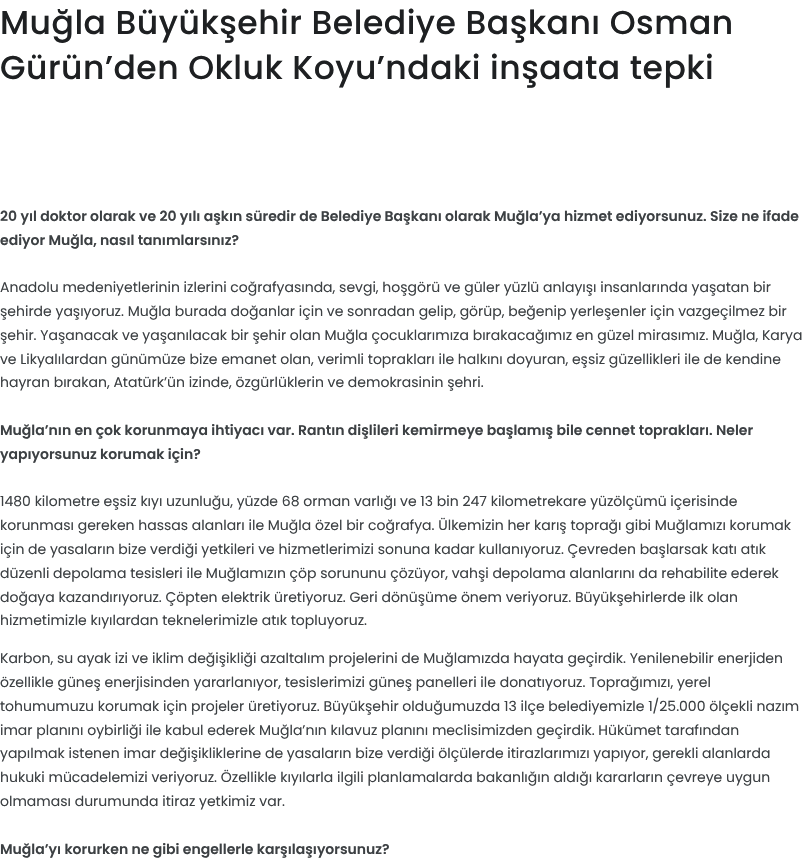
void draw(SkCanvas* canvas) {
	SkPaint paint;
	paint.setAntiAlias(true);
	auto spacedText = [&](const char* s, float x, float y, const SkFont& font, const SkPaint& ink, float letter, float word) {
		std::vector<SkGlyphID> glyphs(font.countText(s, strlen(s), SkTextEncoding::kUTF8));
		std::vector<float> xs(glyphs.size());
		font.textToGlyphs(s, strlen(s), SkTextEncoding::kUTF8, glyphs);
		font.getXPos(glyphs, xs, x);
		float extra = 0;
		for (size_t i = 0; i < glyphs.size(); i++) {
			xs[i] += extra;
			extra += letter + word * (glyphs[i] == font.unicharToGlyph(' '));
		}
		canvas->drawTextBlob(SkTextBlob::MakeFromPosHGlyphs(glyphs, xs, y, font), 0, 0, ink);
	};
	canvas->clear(0xffffffff);
	SkFont f1(fontMgr->matchFamilyStyle("Poppins", SkFontStyle(500, SkFontStyle::kNormal_Width, SkFontStyle::kUpright_Slant)), 33);
	f1.setSubpixel(true);
	paint.setColor(0xff1e2022);
	spacedText("Muğla Büyükşehir Belediye Başkanı Osman", 0, 34, f1, paint, 0.5, 0);
	spacedText("Gürün’den Okluk Koyu’ndaki inşaata tepki", 0, 79, f1, paint, 0.5, 0);
	SkFont f2(fontMgr->matchFamilyStyle("Poppins", SkFontStyle(600, SkFontStyle::kNormal_Width, SkFontStyle::kUpright_Slant)), 14);
	f2.setSubpixel(true);
	paint.setColor(0xff3c4043);
	canvas->drawString("20 yıl doktor olarak ve 20 yılı aşkın süredir de Belediye Başkanı olarak Muğla’ya hizmet ediyorsunuz. Size ne ifade", 0, 221, f2, paint);
	canvas->drawString("ediyor Muğla, nasıl tanımlarsınız?", 0, 245, f2, paint);
	SkFont f3(fontMgr->matchFamilyStyle("Poppins", SkFontStyle::Normal()), 14);
	f3.setSubpixel(true);
	canvas->drawString("Anadolu medeniyetlerinin izlerini coğrafyasında, sevgi, hoşgörü ve güler yüzlü anlayışı insanlarında yaşatan bir", 0, 292, f3, paint);
	canvas->drawString("şehirde yaşıyoruz. Muğla burada doğanlar için ve sonradan gelip, görüp, beğenip yerleşenler için vazgeçilmez bir", 0, 316, f3, paint);
	canvas->drawString("şehir. Yaşanacak ve yaşanılacak bir şehir olan Muğla çocuklarımıza bırakacağımız en güzel mirasımız. Muğla, Karya", 0, 340, f3, paint);
	canvas->drawString("ve Likyalılardan günümüze bize emanet olan, verimli toprakları ile halkını doyuran, eşsiz güzellikleri ile de kendine", 0, 364, f3, paint);
	canvas->drawString("hayran bırakan, Atatürk’ün izinde, özgürlüklerin ve demokrasinin şehri.", 0, 387, f3, paint);
	canvas->drawString("Muğla’nın en çok korunmaya ihtiyacı var. Rantın dişlileri kemirmeye başlamış bile cennet toprakları. Neler", 0, 435, f2, paint);
	canvas->drawString("yapıyorsunuz korumak için?", 0, 459, f2, paint);
	canvas->drawString("1480 kilometre eşsiz kıyı uzunluğu, yüzde 68 orman varlığı ve 13 bin 247 kilometrekare yüzölçümü içerisinde", 0, 506, f3, paint);
	canvas->drawString("korunması gereken hassas alanları ile Muğla özel bir coğrafya. Ülkemizin her karış toprağı gibi Muğlamızı korumak", 0, 530, f3, paint);
	canvas->drawString("için de yasaların bize verdiği yetkileri ve hizmetlerimizi sonuna kadar kullanıyoruz. Çevreden başlarsak katı atık", 0, 554, f3, paint);
	canvas->drawString("düzenli depolama tesisleri ile Muğlamızın çöp sorununu çözüyor, vahşi depolama alanlarını da rehabilite ederek", 0, 578, f3, paint);
	canvas->drawString("doğaya kazandırıyoruz. Çöpten elektrik üretiyoruz. Geri dönüşüme önem veriyoruz. Büyükşehirlerde ilk olan", 0, 602, f3, paint);
	canvas->drawString("hizmetimizle kıyılardan teknelerimizle atık topluyoruz.", 0, 625, f3, paint);
	canvas->drawString("Karbon, su ayak izi ve iklim değişikliği azaltalım projelerini de Muğlamızda hayata geçirdik. Yenilenebilir enerjiden", 0, 663, f3, paint);
	canvas->drawString("özellikle güneş enerjisinden yararlanıyor, tesislerimizi güneş panelleri ile donatıyoruz. Toprağımızı, yerel", 0, 687, f3, paint);
	canvas->drawString("tohumumuzu korumak için projeler üretiyoruz. Büyükşehir olduğumuzda 13 ilçe belediyemizle 1/25.000 ölçekli nazım", 0, 711, f3, paint);
	canvas->drawString("imar planını oybirliği ile kabul ederek Muğla’nın kılavuz planını meclisimizden geçirdik. Hükümet tarafından", 0, 735, f3, paint);
	canvas->drawString("yapılmak istenen imar değişikliklerine de yasaların bize verdiği ölçülerde itirazlarımızı yapıyor, gerekli alanlarda", 0, 758, f3, paint);
	canvas->drawString("hukuki mücadelemizi veriyoruz. Özellikle kıyılarla ilgili planlamalarda bakanlığın aldığı kararların çevreye uygun", 0, 782, f3, paint);
	canvas->drawString("olmaması durumunda itiraz yetkimiz var.", 0, 806, f3, paint);
	canvas->drawString("Muğla’yı korurken ne gibi engellerle karşılaşıyorsunuz?", 0, 854, f2, paint);
}
